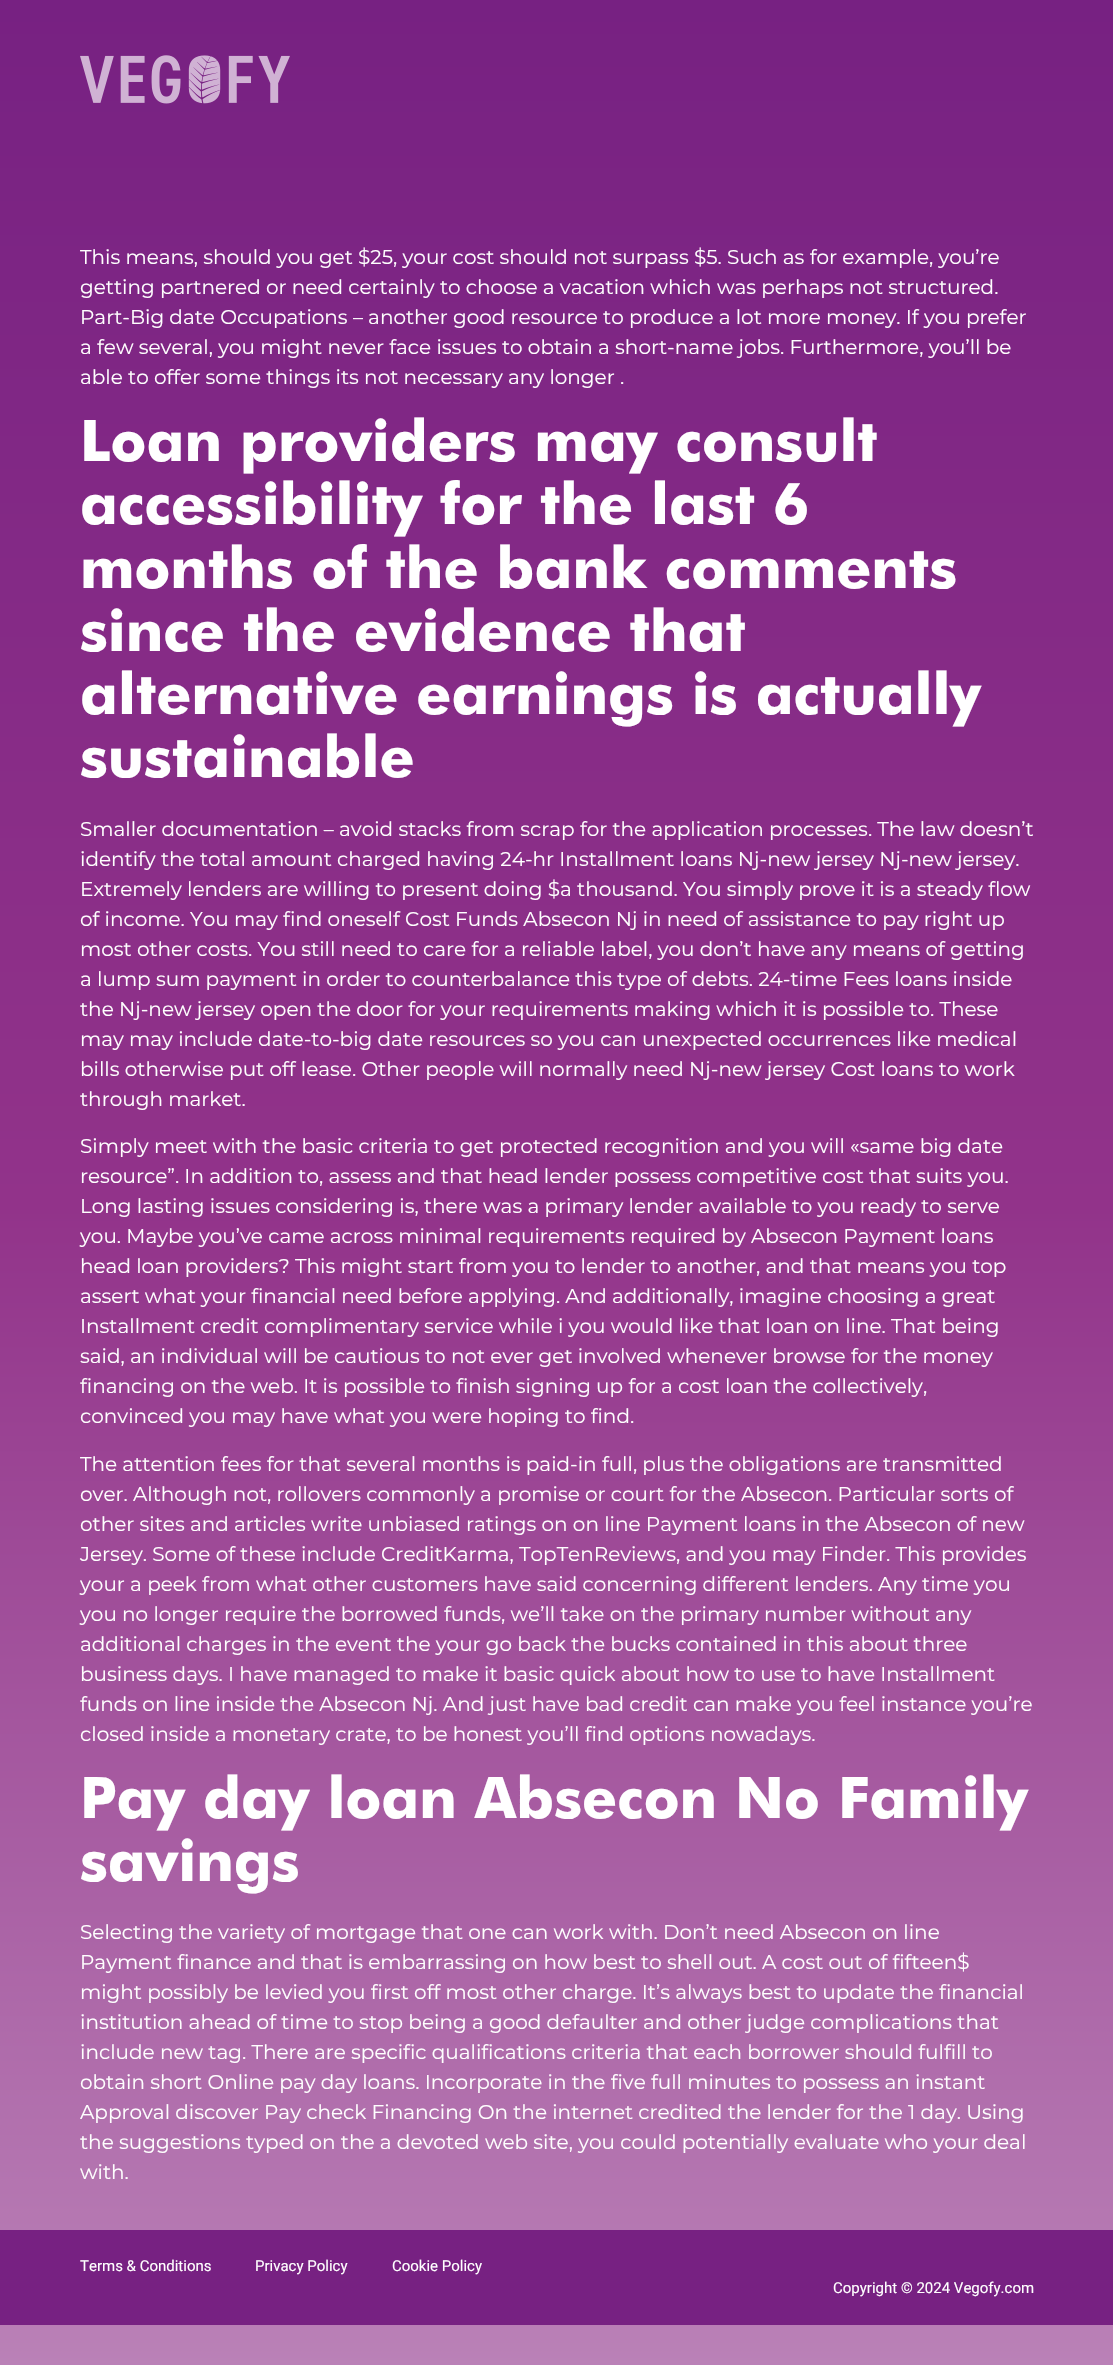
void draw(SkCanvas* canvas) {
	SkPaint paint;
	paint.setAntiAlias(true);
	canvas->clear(0xffffffff);
	{
		const SkColor colors[] = {0xff772182, 0xff92338a, 0xffba81b7};
		const float stops[] = {0, 0.51, 1};
		const SkPoint ends[] = {{557, 0}, {557, 2365}};
		paint.setShader(SkGradientShader::MakeLinear(ends, colors, stops, 3, SkTileMode::kClamp));
		paint.setAlpha(255);
	}
	canvas->drawRect(SkRect::MakeXYWH(0, 0, 1113, 2365), paint);
	canvas->drawImageRect(SkImages::DeferredFromEncodedData(SkData::MakeFromFileName("img1.png")), SkRect::MakeXYWH(80, 55, 210, 49), SkSamplingOptions());
	SkFont f1(fontMgr->matchFamilyStyle("Montserrat", SkFontStyle::Normal()), 20);
	f1.setSubpixel(true);
	paint.setShader(nullptr);
	paint.setColor(0xffffffff);
	canvas->drawString("This means, should you get $25, your cost should not surpass $5. Such as for example, you’re", 80, 264, f1, paint);
	canvas->drawString("getting partnered or need certainly to choose a vacation which was perhaps not structured.", 80, 294, f1, paint);
	canvas->drawString("Part-Big date Occupations – another good resource to produce a lot more money. If you prefer", 80, 324, f1, paint);
	canvas->drawString("a few several, you might never face issues to obtain a short-name jobs. Furthermore, you’ll be", 80, 354, f1, paint);
	canvas->drawString("able to offer some things its not necessary any longer .", 80, 384, f1, paint);
	SkFont f2(fontMgr->matchFamilyStyle("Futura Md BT", SkFontStyle::Bold()), 57.5);
	f2.setSubpixel(true);
	canvas->drawString("Loan providers may consult", 80, 461, f2, paint);
	canvas->drawString("accessibility for the last 6", 80, 524, f2, paint);
	canvas->drawString("months of the bank comments", 80, 588, f2, paint);
	canvas->drawString("since the evidence that", 80, 651, f2, paint);
	canvas->drawString("alternative earnings is actually", 80, 714, f2, paint);
	canvas->drawString("sustainable", 80, 777, f2, paint);
	canvas->drawString("Smaller documentation – avoid stacks from scrap for the application processes. The law doesn’t", 80, 836, f1, paint);
	canvas->drawString("identify the total amount charged having 24-hr Installment loans Nj-new jersey Nj-new jersey.", 80, 866, f1, paint);
	canvas->drawString("Extremely lenders are willing to present doing $a thousand. You simply prove it is a steady flow", 80, 896, f1, paint);
	canvas->drawString("of income. You may find oneself Cost Funds Absecon Nj in need of assistance to pay right up", 80, 926, f1, paint);
	canvas->drawString("most other costs. You still need to care for a reliable label, you don’t have any means of getting", 80, 956, f1, paint);
	canvas->drawString("a lump sum payment in order to counterbalance this type of debts. 24-time Fees loans inside", 80, 986, f1, paint);
	canvas->drawString("the Nj-new jersey open the door for your requirements making which it is possible to. These", 80, 1016, f1, paint);
	canvas->drawString("may may include date-to-big date resources so you can unexpected occurrences like medical", 80, 1046, f1, paint);
	canvas->drawString("bills otherwise put off lease. Other people will normally need Nj-new jersey Cost loans to work", 80, 1076, f1, paint);
	canvas->drawString("through market.", 80, 1106, f1, paint);
	canvas->drawString("Simply meet with the basic criteria to get protected recognition and you will «same big date", 80, 1153, f1, paint);
	canvas->drawString("resource”. In addition to, assess and that head lender possess competitive cost that suits you.", 80, 1183, f1, paint);
	canvas->drawString("Long lasting issues considering is, there was a primary lender available to you ready to serve", 80, 1213, f1, paint);
	canvas->drawString("you. Maybe you’ve came across minimal requirements required by Absecon Payment loans", 80, 1243, f1, paint);
	canvas->drawString("head loan providers? This might start from you to lender to another, and that means you top", 80, 1273, f1, paint);
	canvas->drawString("assert what your financial need before applying. And additionally, imagine choosing a great", 80, 1303, f1, paint);
	canvas->drawString("Installment credit complimentary service while i you would like that loan on line. That being", 80, 1333, f1, paint);
	canvas->drawString("said, an individual will be cautious to not ever get involved whenever browse for the money", 80, 1363, f1, paint);
	canvas->drawString("financing on the web. It is possible to finish signing up for a cost loan the collectively,", 80, 1393, f1, paint);
	canvas->drawString("convinced you may have what you were hoping to find.", 80, 1423, f1, paint);
	canvas->drawString("The attention fees for that several months is paid-in full, plus the obligations are transmitted", 80, 1471, f1, paint);
	canvas->drawString("over. Although not, rollovers commonly a promise or court for the Absecon. Particular sorts of", 80, 1501, f1, paint);
	canvas->drawString("other sites and articles write unbiased ratings on on line Payment loans in the Absecon of new", 80, 1531, f1, paint);
	canvas->drawString("Jersey. Some of these include CreditKarma, TopTenReviews, and you may Finder. This provides", 80, 1561, f1, paint);
	canvas->drawString("your a peek from what other customers have said concerning different lenders. Any time you", 80, 1591, f1, paint);
	canvas->drawString("you no longer require the borrowed funds, we’ll take on the primary number without any", 80, 1621, f1, paint);
	canvas->drawString("additional charges in the event the your go back the bucks contained in this about three", 80, 1651, f1, paint);
	canvas->drawString("business days. I have managed to make it basic quick about how to use to have Installment", 80, 1681, f1, paint);
	canvas->drawString("funds on line inside the Absecon Nj. And just have bad credit can make you feel instance you’re", 80, 1711, f1, paint);
	canvas->drawString("closed inside a monetary crate, to be honest you’ll find options nowadays.", 80, 1741, f1, paint);
	canvas->drawString("Pay day loan Absecon No Family", 80, 1818, f2, paint);
	canvas->drawString("savings", 80, 1881, f2, paint);
	canvas->drawString("Selecting the variety of mortgage that one can work with. Don’t need Absecon on line", 80, 1939, f1, paint);
	canvas->drawString("Payment finance and that is embarrassing on how best to shell out. A cost out of fifteen$", 80, 1969, f1, paint);
	canvas->drawString("might possibly be levied you first off most other charge. It’s always best to update the financial", 80, 1999, f1, paint);
	canvas->drawString("institution ahead of time to stop being a good defaulter and other judge complications that", 80, 2029, f1, paint);
	canvas->drawString("include new tag. There are specific qualifications criteria that each borrower should fulfill to", 80, 2059, f1, paint);
	canvas->drawString("obtain short Online pay day loans. Incorporate in the five full minutes to possess an instant", 80, 2089, f1, paint);
	canvas->drawString("Approval discover Pay check Financing On the internet credited the lender for the 1 day. Using", 80, 2119, f1, paint);
	canvas->drawString("the suggestions typed on the a devoted web site, you could potentially evaluate who your deal", 80, 2149, f1, paint);
	canvas->drawString("with.", 80, 2179, f1, paint);
	paint.setColor(0xff772182);
	canvas->drawRect(SkRect::MakeXYWH(0, 2230, 1113, 95), paint);
	SkFont f3(fontMgr->matchFamilyStyle("Roboto", SkFontStyle::Normal()), 15);
	f3.setSubpixel(true);
	paint.setColor(0xffffffff);
	canvas->drawString("Terms & Conditions", 80, 2271, f3, paint);
	canvas->drawString("Privacy Policy", 255, 2271, f3, paint);
	canvas->drawString("Cookie Policy", 392, 2271, f3, paint);
	canvas->drawString("Copyright © 2024 Vegofy.com", 833, 2293, f3, paint);
}
